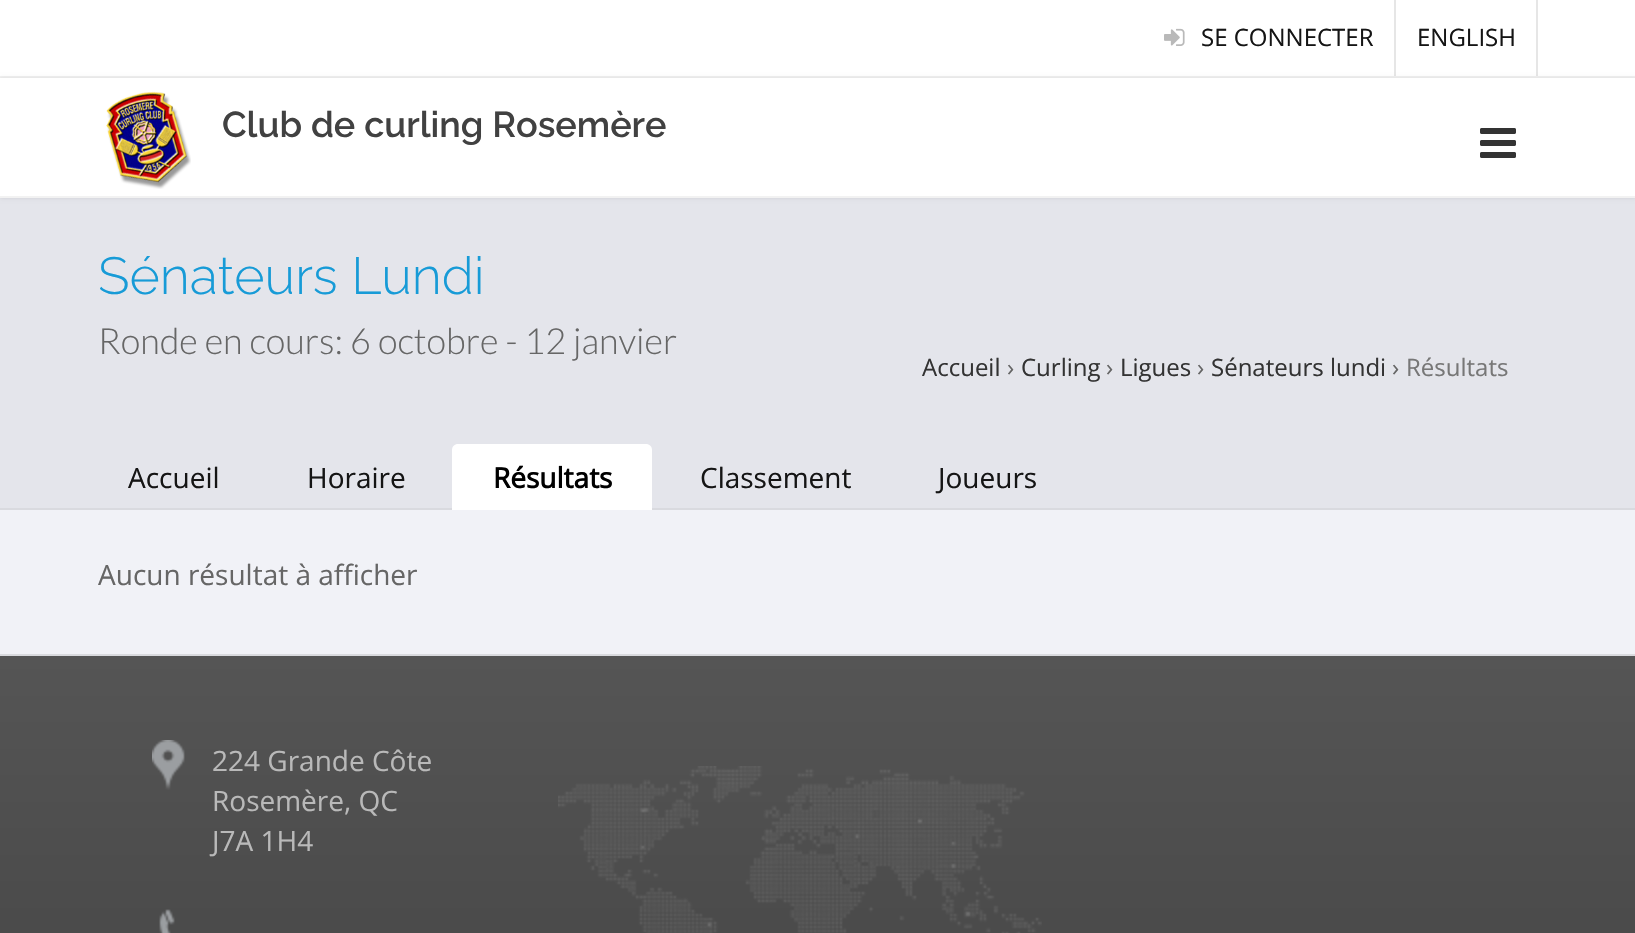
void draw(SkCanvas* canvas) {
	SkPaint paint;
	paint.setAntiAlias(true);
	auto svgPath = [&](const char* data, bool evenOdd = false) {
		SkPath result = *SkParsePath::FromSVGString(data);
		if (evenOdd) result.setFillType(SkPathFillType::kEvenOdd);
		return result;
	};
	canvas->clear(0xfff1f2f7);
	paint.setColor(0xffffffff);
	canvas->drawRect(SkRect::MakeXYWH(0, 0, 1635, 76), paint);
	paint.setColor(0xfff2f2f2);
	canvas->drawRect(SkRect::MakeXYWH(0, 76, 1635, 2), paint);
	paint.setColor(0xffe6e6e6);
	canvas->drawRect(SkRect::MakeXYWH(1394, 0, 2, 76), paint);
	canvas->drawImageRect(SkImages::DeferredFromEncodedData(SkData::MakeFromFileName("img1.png")), SkRect::MakeXYWH(1164, 28, 21, 18), SkSamplingOptions());
	SkFont f1(fontMgr->matchFamilyStyle("Open Sans", SkFontStyle::Normal()), 24);
	f1.setSubpixel(true);
	paint.setColor(0xff151515);
	canvas->drawString("SE CONNECTER", 1201, 46, f1, paint);
	paint.setColor(0xffe6e6e6);
	canvas->drawRect(SkRect::MakeXYWH(1536, 0, 2, 76), paint);
	paint.setColor(0xff151515);
	canvas->drawString("ENGLISH", 1417, 46, f1, paint);
	paint.setColor(0xffe4e5eb);
	canvas->drawRect(SkRect::MakeXYWH(0, 198, 1635, 310), paint);
	paint.setColor(0x1a000000);
	paint.setMaskFilter(SkMaskFilter::MakeBlur(kNormal_SkBlurStyle, 2));
	canvas->drawRect(SkRect::MakeXYWH(0, 78, 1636, 120), paint);
	paint.setMaskFilter(nullptr);
	paint.setColor(0xffffffff);
	canvas->drawRect(SkRect::MakeXYWH(0, 78, 1635, 118), paint);
	paint.setColor(0xfff2f2f2);
	canvas->drawRect(SkRect::MakeXYWH(0, 196, 1635, 2), paint);
	canvas->drawImageRect(SkImages::DeferredFromEncodedData(SkData::MakeFromFileName("img2.png")), SkRect::MakeXYWH(106, 91, 85, 98), SkSamplingOptions());
	SkFont f2(fontMgr->matchFamilyStyle("Raleway", SkFontStyle(600, SkFontStyle::kNormal_Width, SkFontStyle::kUpright_Slant)), 36);
	f2.setSubpixel(true);
	paint.setColor(0xff414141);
	canvas->drawString("Club de curling Rosemère", 222, 137, f2, paint);
	canvas->drawImageRect(SkImages::DeferredFromEncodedData(SkData::MakeFromFileName("img3.png")), SkRect::MakeXYWH(1480, 128, 36, 30), SkSamplingOptions());
	paint.setColor(0xffd9dadf);
	canvas->drawRect(SkRect::MakeXYWH(0, 508, 1635, 2), paint);
	SkFont f3(fontMgr->matchFamilyStyle("Raleway", SkFontStyle(300, SkFontStyle::kNormal_Width, SkFontStyle::kUpright_Slant)), 52);
	f3.setSubpixel(true);
	paint.setColor(0xff179bd7);
	canvas->drawString("Sénateurs Lundi", 98, 294, f3, paint);
	SkFont f4(fontMgr->matchFamilyStyle("Lato", SkFontStyle(300, SkFontStyle::kNormal_Width, SkFontStyle::kUpright_Slant)), 36);
	f4.setSubpixel(true);
	paint.setColor(0xff666666);
	canvas->drawString("Ronde en cours: 6 octobre - 12 janvier", 98, 354, f4, paint);
	paint.setColor(0xff333333);
	canvas->drawString("Accueil", 922, 376, f1, paint);
	paint.setColor(0xff666666);
	canvas->drawString("›", 1007, 376, f1, paint);
	paint.setColor(0xff333333);
	canvas->drawString("Curling", 1021, 376, f1, paint);
	paint.setColor(0xff666666);
	canvas->drawString("›", 1106, 376, f1, paint);
	paint.setColor(0xff333333);
	canvas->drawString("Ligues", 1120, 376, f1, paint);
	paint.setColor(0xff666666);
	canvas->drawString("›", 1197, 376, f1, paint);
	paint.setColor(0xff333333);
	canvas->drawString("Sénateurs lundi", 1211, 376, f1, paint);
	paint.setColor(0xff666666);
	canvas->drawString("›", 1392, 376, f1, paint);
	paint.setColor(0xff777777);
	canvas->drawString("Résultats", 1406, 376, f1, paint);
	SkFont f5(fontMgr->matchFamilyStyle("Open Sans", SkFontStyle::Normal()), 28);
	f5.setSubpixel(true);
	paint.setColor(0xff151515);
	canvas->drawString("Accueil", 128, 488, f5, paint);
	canvas->drawString("Horaire", 307, 488, f5, paint);
	paint.setColor(0xffffffff);
	canvas->drawPath(svgPath("M458 444H646C649.5 444 652 446.5 652 450V510H452V450C452 446.5 454.5 444 458 444Z"), paint);
	SkFont f6(fontMgr->matchFamilyStyle("Open Sans", SkFontStyle::Bold()), 28);
	f6.setSubpixel(true);
	paint.setColor(0xff000000);
	canvas->drawString("Résultats", 493, 488, f6, paint);
	paint.setColor(0xff151515);
	canvas->drawString("Classement", 700, 488, f5, paint);
	canvas->drawString("Joueurs", 938, 488, f5, paint);
	paint.setColor(0xffd9dade);
	canvas->drawRect(SkRect::MakeXYWH(0, 654, 1635, 2), paint);
	paint.setColor(0xff666666);
	canvas->drawString("Aucun résultat à afficher", 98, 585, f5, paint);
	{
		const SkColor colors[] = {0xff555555, 0xff313131};
		const float stops[] = {0, 1};
		const SkPoint ends[] = {{818, 656}, {818, 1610}};
		paint.setShader(SkGradientShader::MakeLinear(ends, colors, stops, 2, SkTileMode::kClamp));
		paint.setAlpha(255);
	}
	canvas->drawRect(SkRect::MakeXYWH(0, 656, 1635, 277), paint);
	canvas->drawImageRect(SkImages::DeferredFromEncodedData(SkData::MakeFromFileName("img4.png")), SkRect::MakeXYWH(558, 766, 484, 167), SkSamplingOptions());
	canvas->drawImageRect(SkImages::DeferredFromEncodedData(SkData::MakeFromFileName("img5.png")), SkRect::MakeXYWH(152, 740, 33, 50), SkSamplingOptions());
	paint.setShader(nullptr);
	paint.setColor(0xffb9b9b9);
	canvas->drawString("224 Grande Côte", 212, 771, f5, paint);
	canvas->drawString("Rosemère, QC", 212, 811, f5, paint);
	canvas->drawString("J7A 1H4", 212, 851, f5, paint);
	canvas->drawImageRect(SkImages::DeferredFromEncodedData(SkData::MakeFromFileName("img6.png")), SkRect::MakeXYWH(159, 909, 16, 24), SkSamplingOptions());
}
